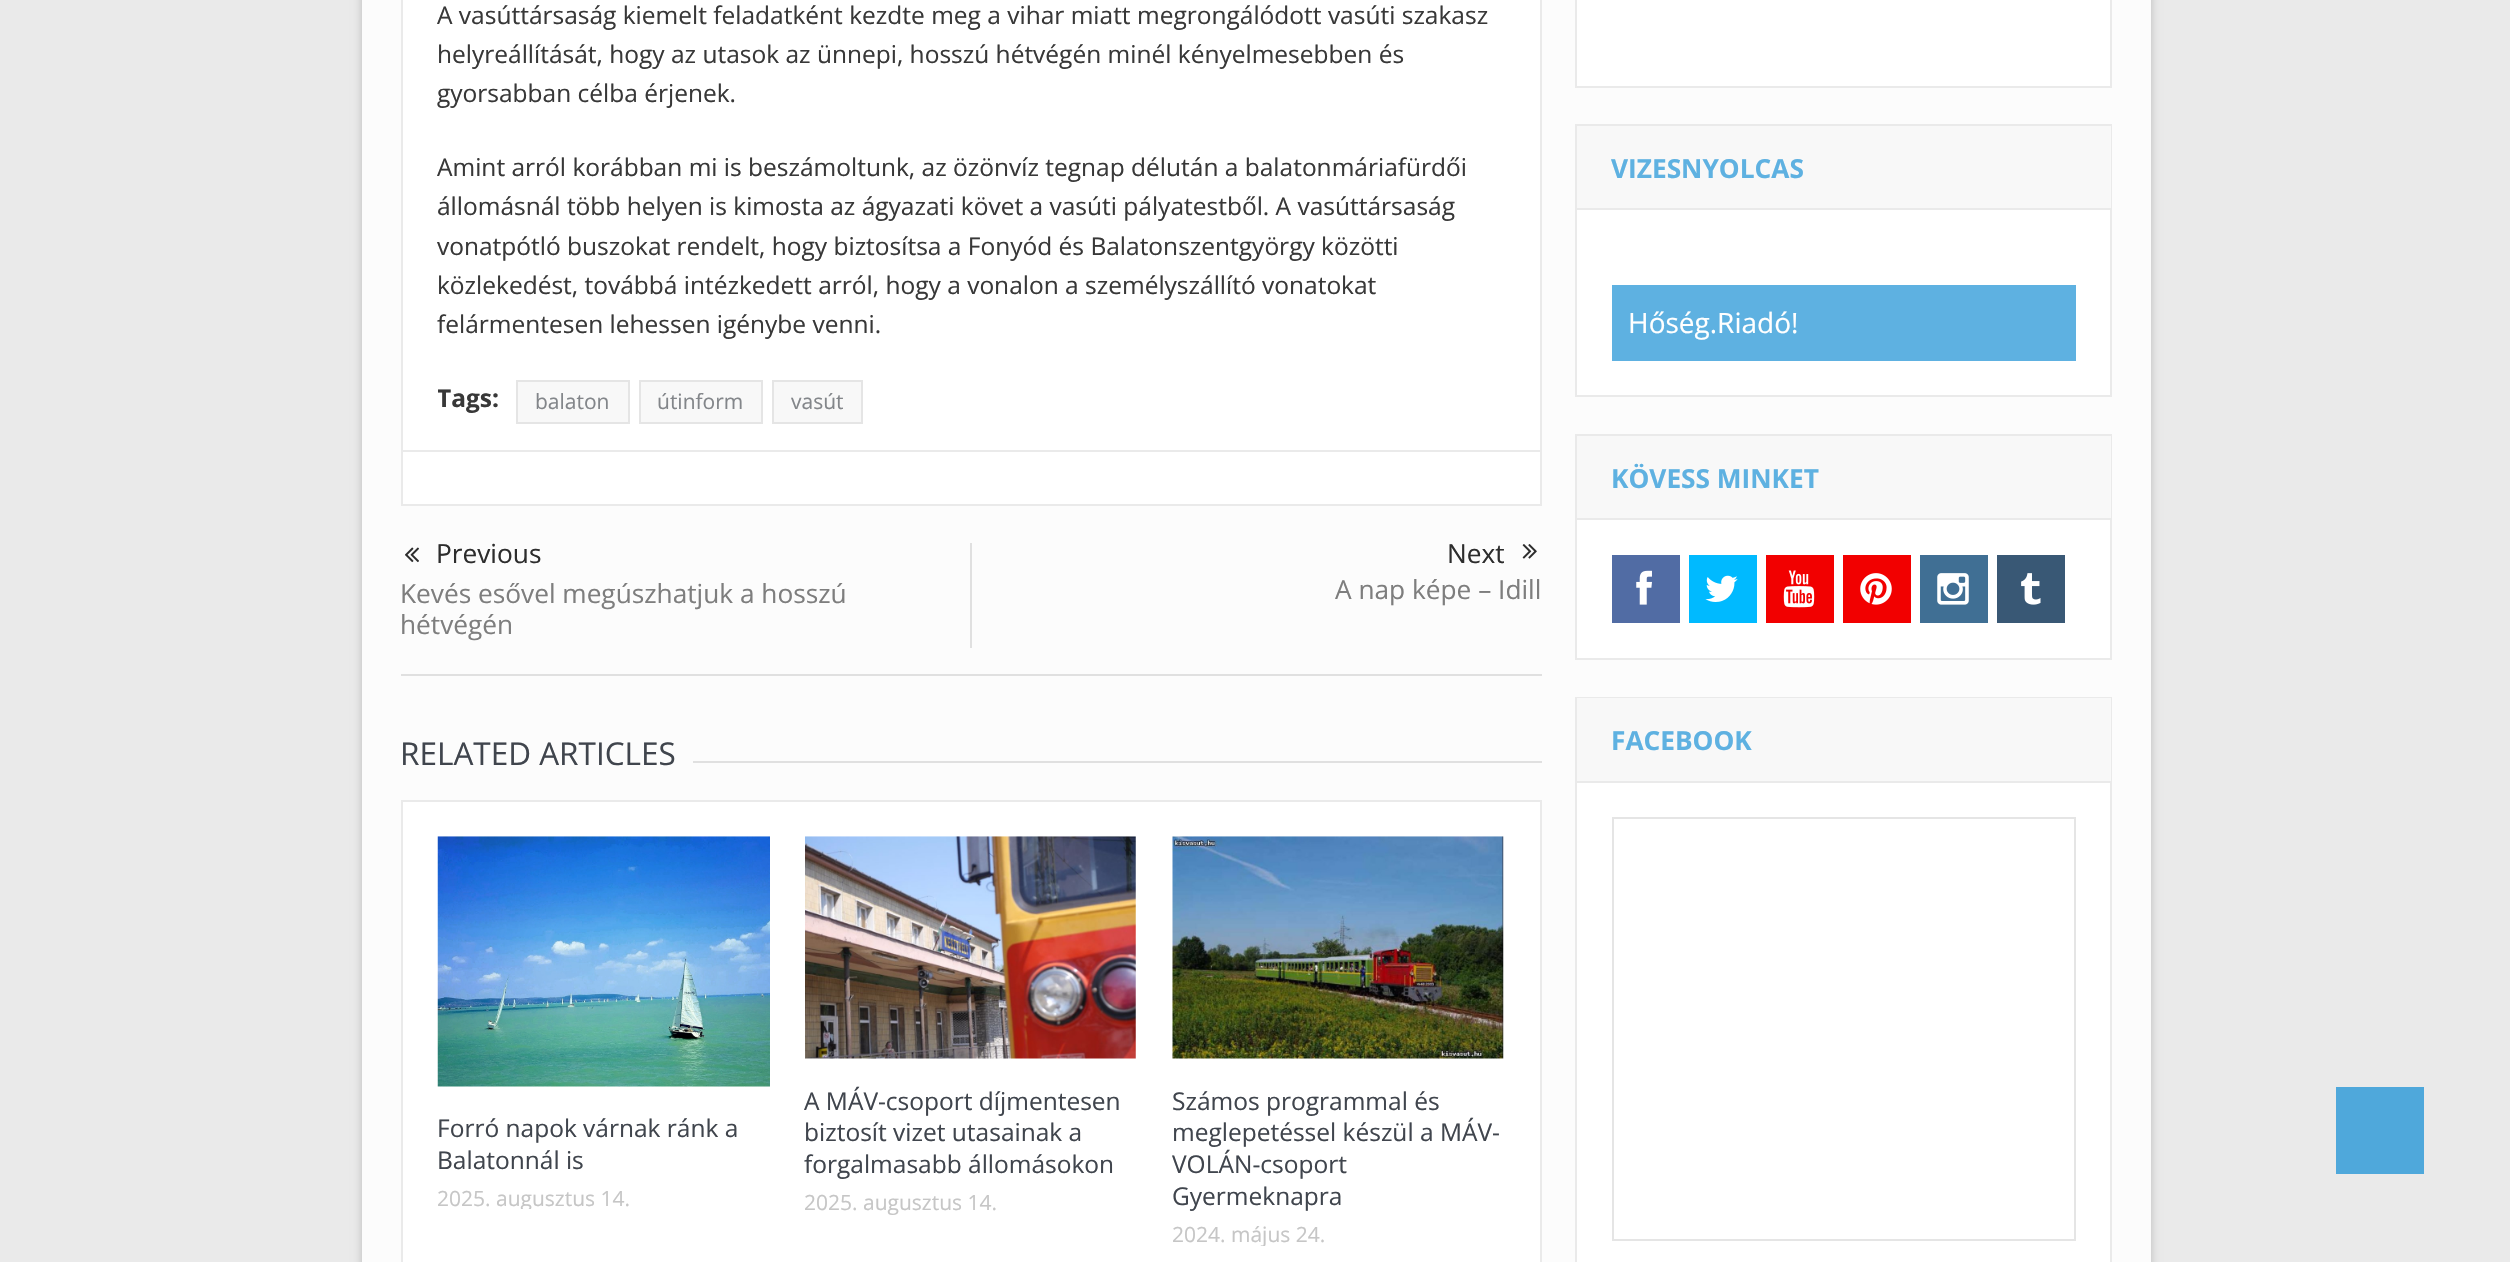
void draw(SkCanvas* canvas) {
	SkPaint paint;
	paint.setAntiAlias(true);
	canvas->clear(0xffeaeaea);
	paint.setColor(0x33000000);
	paint.setMaskFilter(SkMaskFilter::MakeBlur(kNormal_SkBlurStyle, 4.5));
	canvas->drawRect(SkRect::MakeXYWH(362, -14, 1789, 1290), paint);
	paint.setMaskFilter(nullptr);
	paint.setColor(0xfffcfcfc);
	canvas->drawRect(SkRect::MakeXYWH(362, 0, 1789, 1262), paint);
	paint.setColor(0xffffffff);
	canvas->drawRect(SkRect::MakeXYWH(402, -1, 1139, 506), paint);
	paint.setStroke(true);
	paint.setStrokeWidth(2);
	paint.setColor(0xffeaeaea);
	canvas->drawRect(SkRect::MakeXYWH(402, -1, 1139, 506), paint);
	SkFont f1(fontMgr->matchFamilyStyle("Open Sans", SkFontStyle::Normal()), 24.5);
	f1.setSubpixel(true);
	paint.setStroke(false);
	paint.setColor(0xff383838);
	canvas->drawString("A vasúttársaság kiemelt feladatként kezdte meg a vihar miatt megrongálódott vasúti szakasz", 437, 24, f1, paint);
	canvas->drawString("helyreállítását, hogy az utasok az ünnepi, hosszú hétvégén minél kényelmesebben és", 437, 63, f1, paint);
	canvas->drawString("gyorsabban célba érjenek.", 437, 102, f1, paint);
	canvas->drawString("Amint arról korábban mi is beszámoltunk, az özönvíz tegnap délután a balatonmáriafürdői", 437, 176, f1, paint);
	canvas->drawString("állomásnál több helyen is kimosta az ágyazati követ a vasúti pályatestből. A vasúttársaság", 437, 215, f1, paint);
	canvas->drawString("vonatpótló buszokat rendelt, hogy biztosítsa a Fonyód és Balatonszentgyörgy közötti", 437, 255, f1, paint);
	canvas->drawString("közlekedést, továbbá intézkedett arról, hogy a vonalon a személyszállító vonatokat", 437, 294, f1, paint);
	canvas->drawString("felármentesen lehessen igénybe venni.", 437, 333, f1, paint);
	canvas->save();
	canvas->clipRect(SkRect::MakeXYWH(438, 380, 1067, 52));
	SkFont f2(fontMgr->matchFamilyStyle("Open Sans", SkFontStyle::Bold()), 24.5);
	f2.setSubpixel(true);
	canvas->drawString("Tags:", 437, 407, f2, paint);
	canvas->restore();
	paint.setColor(0xfff8f8f8);
	canvas->drawRect(SkRect::MakeXYWH(517, 381, 112, 42), paint);
	paint.setStroke(true);
	paint.setColor(0xffe5e5e5);
	canvas->drawRect(SkRect::MakeXYWH(517, 381, 112, 42), paint);
	SkFont f3(fontMgr->matchFamilyStyle("Open Sans", SkFontStyle::Normal()), 21);
	f3.setSubpixel(true);
	paint.setStroke(false);
	paint.setColor(0xff83868a);
	canvas->drawString("balaton", 535, 409, f3, paint);
	paint.setColor(0xfff8f8f8);
	canvas->drawRect(SkRect::MakeXYWH(640, 381, 122, 42), paint);
	paint.setStroke(true);
	paint.setColor(0xffe5e5e5);
	canvas->drawRect(SkRect::MakeXYWH(640, 381, 122, 42), paint);
	paint.setStroke(false);
	paint.setColor(0xff83868a);
	canvas->drawString("útinform", 657, 409, f3, paint);
	paint.setColor(0xfff8f8f8);
	canvas->drawRect(SkRect::MakeXYWH(773, 381, 89, 42), paint);
	paint.setStroke(true);
	paint.setColor(0xffe5e5e5);
	canvas->drawRect(SkRect::MakeXYWH(773, 381, 89, 42), paint);
	paint.setStroke(false);
	paint.setColor(0xff83868a);
	canvas->drawString("vasút", 791, 409, f3, paint);
	paint.setColor(0xffeaeaea);
	canvas->drawRect(SkRect::MakeXYWH(403, 450, 1137, 2), paint);
	paint.setColor(0xffe0e0e0);
	canvas->drawRect(SkRect::MakeXYWH(401, 674, 1141, 2), paint);
	canvas->drawImageRect(SkImages::DeferredFromEncodedData(SkData::MakeFromFileName("img1.png")), SkRect::MakeXYWH(405, 547, 14, 16), SkSamplingOptions());
	SkFont f4(fontMgr->matchFamilyStyle("Open Sans", SkFontStyle::Normal()), 26.25);
	f4.setSubpixel(true);
	paint.setColor(0xff2d2d2d);
	canvas->drawString("Previous", 436, 563, f4, paint);
	paint.setColor(0xff7e7e7e);
	canvas->drawString("Kevés esővel megúszhatjuk a hosszú", 400, 603, f4, paint);
	canvas->drawString("hétvégén", 400, 634, f4, paint);
	paint.setColor(0xffe0e0e0);
	canvas->drawRect(SkRect::MakeXYWH(970, 543, 2, 105), paint);
	paint.setColor(0xff2d2d2d);
	canvas->drawString("Next", 1447, 563, f4, paint);
	canvas->drawImageRect(SkImages::DeferredFromEncodedData(SkData::MakeFromFileName("img2.png")), SkRect::MakeXYWH(1522, 544, 15, 15), SkSamplingOptions());
	paint.setColor(0xff7e7e7e);
	canvas->drawString("A nap képe – Idill", 1335, 599, f4, paint);
	SkFont f5(fontMgr->matchFamilyStyle("Open Sans", SkFontStyle::Normal()), 31.5);
	f5.setSubpixel(true);
	paint.setColor(0xff40454d);
	canvas->drawString("RELATED ARTICLES", 400, 765, f5, paint);
	paint.setColor(0xffe0e0e0);
	canvas->drawRect(SkRect::MakeXYWH(693, 761, 849, 2), paint);
	paint.setColor(0xffffffff);
	canvas->drawRect(SkRect::MakeXYWH(402, 801, 1139, 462), paint);
	paint.setStroke(true);
	paint.setColor(0xffeaeaea);
	canvas->drawRect(SkRect::MakeXYWH(402, 801, 1139, 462), paint);
	canvas->drawImageRect(SkImages::DeferredFromEncodedData(SkData::MakeFromFileName("img3.png")), SkRect::MakeXYWH(437, 836, 333, 251), SkSamplingOptions());
	paint.setStroke(false);
	paint.setColor(0xff40454d);
	canvas->drawString("Forró napok várnak ránk a", 437, 1137, f1, paint);
	canvas->drawString("Balatonnál is", 437, 1169, f1, paint);
	canvas->save();
	canvas->clipRect(SkRect::MakeXYWH(438, 1188, 332, 21));
	paint.setColor(0xffc6c6c6);
	canvas->drawString("2025. augusztus 14.", 437, 1206, f3, paint);
	canvas->restore();
	canvas->drawImageRect(SkImages::DeferredFromEncodedData(SkData::MakeFromFileName("img4.png")), SkRect::MakeXYWH(805, 836, 331, 223), SkSamplingOptions());
	paint.setColor(0xff40454d);
	canvas->drawString("A MÁV-csoport díjmentesen", 804, 1110, f1, paint);
	canvas->drawString("biztosít vizet utasainak a", 804, 1141, f1, paint);
	canvas->drawString("forgalmasabb állomásokon", 804, 1173, f1, paint);
	paint.setColor(0xffc6c6c6);
	canvas->drawString("2025. augusztus 14.", 804, 1210, f3, paint);
	canvas->drawImageRect(SkImages::DeferredFromEncodedData(SkData::MakeFromFileName("img5.png")), SkRect::MakeXYWH(1172, 836, 332, 223), SkSamplingOptions());
	paint.setColor(0xff40454d);
	canvas->drawString("Számos programmal és", 1172, 1110, f1, paint);
	canvas->drawString("meglepetéssel készül a MÁV-", 1172, 1141, f1, paint);
	canvas->drawString("VOLÁN-csoport", 1172, 1173, f1, paint);
	canvas->drawString("Gyermeknapra", 1172, 1205, f1, paint);
	canvas->save();
	canvas->clipRect(SkRect::MakeXYWH(1173, 1225, 332, 21));
	paint.setColor(0xffc6c6c6);
	canvas->drawString("2024. május 24.", 1172, 1242, f3, paint);
	canvas->restore();
	paint.setColor(0xffffffff);
	canvas->drawRect(SkRect::MakeXYWH(1576, -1, 535, 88), paint);
	paint.setStroke(true);
	paint.setColor(0xffeaeaea);
	canvas->drawRect(SkRect::MakeXYWH(1576, -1, 535, 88), paint);
	paint.setStroke(false);
	paint.setColor(0xffffffff);
	canvas->drawRect(SkRect::MakeXYWH(1577, 210, 533, 185), paint);
	paint.setStroke(true);
	paint.setColor(0xffeaeaea);
	canvas->drawRect(SkRect::MakeXYWH(1576, 125, 535, 271), paint);
	paint.setStroke(false);
	paint.setColor(0xfff8f8f8);
	canvas->drawRect(SkRect::MakeXYWH(1577, 126, 534, 82), paint);
	paint.setColor(0xffeaeaea);
	canvas->drawRect(SkRect::MakeXYWH(1577, 208, 534, 2), paint);
	SkFont f6(fontMgr->matchFamilyStyle("Open Sans", SkFontStyle::Bold()), 26.25);
	f6.setSubpixel(true);
	paint.setColor(0xff5eb1e1);
	canvas->drawString("VIZESNYOLCAS", 1611, 178, f6, paint);
	canvas->drawRect(SkRect::MakeXYWH(1612, 285, 464, 76), paint);
	SkFont f7(fontMgr->matchFamilyStyle("Open Sans", SkFontStyle::Normal()), 28);
	f7.setSubpixel(true);
	paint.setColor(0xffffffff);
	canvas->drawString("Hőség.Riadó!", 1628, 333, f7, paint);
	canvas->drawRect(SkRect::MakeXYWH(1577, 520, 533, 138), paint);
	paint.setStroke(true);
	paint.setColor(0xffeaeaea);
	canvas->drawRect(SkRect::MakeXYWH(1576, 435, 535, 224), paint);
	paint.setStroke(false);
	paint.setColor(0xfff8f8f8);
	canvas->drawRect(SkRect::MakeXYWH(1577, 436, 534, 82), paint);
	paint.setColor(0xffeaeaea);
	canvas->drawRect(SkRect::MakeXYWH(1577, 518, 534, 2), paint);
	paint.setColor(0xff5eb1e1);
	canvas->drawString("KÖVESS MINKET", 1611, 488, f6, paint);
	paint.setColor(0xff516ca4);
	canvas->drawRect(SkRect::MakeXYWH(1612, 555, 68, 68), paint);
	canvas->drawImageRect(SkImages::DeferredFromEncodedData(SkData::MakeFromFileName("img6.png")), SkRect::MakeXYWH(1636, 570, 16, 35), SkSamplingOptions());
	paint.setColor(0xff00baff);
	canvas->drawRect(SkRect::MakeXYWH(1689, 555, 68, 68), paint);
	canvas->drawImageRect(SkImages::DeferredFromEncodedData(SkData::MakeFromFileName("img7.png")), SkRect::MakeXYWH(1705, 575, 33, 27), SkSamplingOptions());
	paint.setColor(0xfff20000);
	canvas->drawRect(SkRect::MakeXYWH(1766, 555, 68, 68), paint);
	canvas->drawImageRect(SkImages::DeferredFromEncodedData(SkData::MakeFromFileName("img8.png")), SkRect::MakeXYWH(1783, 570, 32, 38), SkSamplingOptions());
	canvas->drawRect(SkRect::MakeXYWH(1843, 555, 68, 68), paint);
	canvas->drawImageRect(SkImages::DeferredFromEncodedData(SkData::MakeFromFileName("img9.png")), SkRect::MakeXYWH(1860, 573, 32, 32), SkSamplingOptions());
	paint.setColor(0xff406f94);
	canvas->drawRect(SkRect::MakeXYWH(1920, 555, 68, 68), paint);
	canvas->drawImageRect(SkImages::DeferredFromEncodedData(SkData::MakeFromFileName("img10.png")), SkRect::MakeXYWH(1937, 573, 32, 32), SkSamplingOptions());
	paint.setColor(0xff395875);
	canvas->drawRect(SkRect::MakeXYWH(1997, 555, 68, 68), paint);
	canvas->drawImageRect(SkImages::DeferredFromEncodedData(SkData::MakeFromFileName("img11.png")), SkRect::MakeXYWH(2021, 573, 20, 32), SkSamplingOptions());
	paint.setColor(0xffffffff);
	canvas->drawRect(SkRect::MakeXYWH(1577, 783, 533, 479), paint);
	paint.setStroke(true);
	paint.setColor(0xffeaeaea);
	canvas->drawRect(SkRect::MakeXYWH(1576, 698, 535, 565), paint);
	paint.setStroke(false);
	paint.setColor(0xfff8f8f8);
	canvas->drawRect(SkRect::MakeXYWH(1577, 698, 534, 83), paint);
	paint.setColor(0xffeaeaea);
	canvas->drawRect(SkRect::MakeXYWH(1577, 781, 534, 2), paint);
	paint.setColor(0xff5eb1e1);
	canvas->drawString("FACEBOOK", 1611, 750, f6, paint);
	paint.setStroke(true);
	paint.setColor(0xffe5e5e5);
	canvas->drawRect(SkRect::MakeXYWH(1613, 818, 462, 422), paint);
	paint.setStroke(false);
	paint.setColor(0xff4fa8db);
	canvas->drawRect(SkRect::MakeXYWH(2336, 1087, 88, 87), paint);
}
